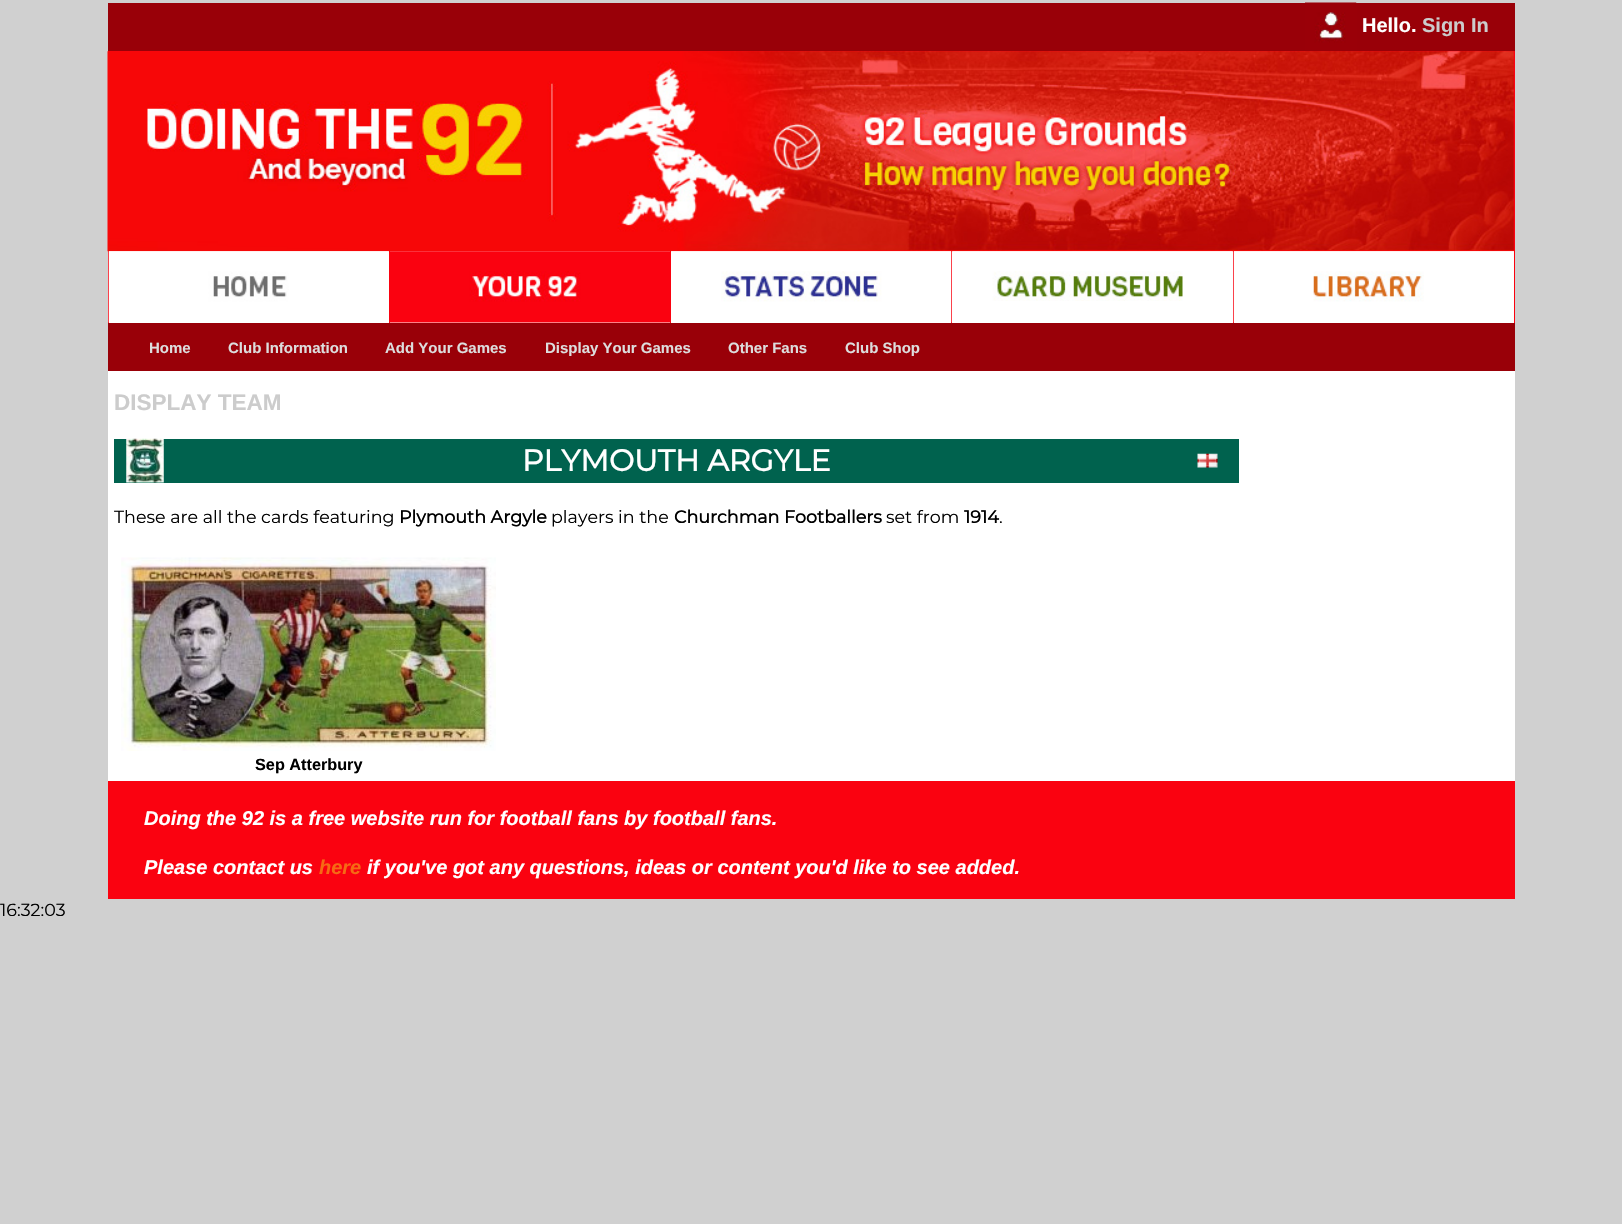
void draw(SkCanvas* canvas) {
	SkPaint paint;
	paint.setAntiAlias(true);
	canvas->clear(0xffd0d0d0);
	paint.setColor(0xffffffff);
	canvas->drawRect(SkRect::MakeXYWH(108, 251, 1407, 530), paint);
	paint.setColor(0xff990008);
	canvas->drawRect(SkRect::MakeXYWH(108, 3, 1407, 48), paint);
	paint.setColor(0xfffa0210);
	canvas->drawRect(SkRect::MakeXYWH(108, 51, 1407, 200), paint);
	canvas->drawImageRect(SkImages::DeferredFromEncodedData(SkData::MakeFromFileName("img1.png")), SkRect::MakeXYWH(1305, 2, 52, 50), SkSamplingOptions());
	SkFont f1(fontMgr->matchFamilyStyle("Liberation Sans", SkFontStyle::Bold()), 20);
	f1.setSubpixel(true);
	paint.setColor(0xffffffff);
	canvas->drawString("Hello.", 1362, 32, f1, paint);
	paint.setColor(0xffcccccc);
	canvas->drawString("Sign In", 1422, 32, f1, paint);
	paint.setColor(0xfffa0210);
	canvas->drawRect(SkRect::MakeXYWH(108, 251, 1, 72), paint);
	canvas->drawRect(SkRect::MakeXYWH(389, 251, 1, 72), paint);
	canvas->drawRect(SkRect::MakeXYWH(670, 251, 1, 72), paint);
	canvas->drawRect(SkRect::MakeXYWH(951, 251, 1, 72), paint);
	canvas->drawRect(SkRect::MakeXYWH(1233, 251, 1, 72), paint);
	canvas->drawImageRect(SkImages::DeferredFromEncodedData(SkData::MakeFromFileName("img2.png")), SkRect::MakeXYWH(107, 51, 1407, 201), SkSamplingOptions());
	canvas->drawImageRect(SkImages::DeferredFromEncodedData(SkData::MakeFromFileName("img3.png")), SkRect::MakeXYWH(108, 251, 281, 72), SkSamplingOptions());
	canvas->drawImageRect(SkImages::DeferredFromEncodedData(SkData::MakeFromFileName("img4.png")), SkRect::MakeXYWH(390, 251, 280, 72), SkSamplingOptions());
	canvas->drawImageRect(SkImages::DeferredFromEncodedData(SkData::MakeFromFileName("img5.png")), SkRect::MakeXYWH(671, 251, 281, 72), SkSamplingOptions());
	canvas->drawImageRect(SkImages::DeferredFromEncodedData(SkData::MakeFromFileName("img6.png")), SkRect::MakeXYWH(952, 251, 281, 50), SkSamplingOptions());
	canvas->drawImageRect(SkImages::DeferredFromEncodedData(SkData::MakeFromFileName("img7.png")), SkRect::MakeXYWH(1233, 251, 281, 72), SkSamplingOptions());
	canvas->drawRect(SkRect::MakeXYWH(1514, 251, 1, 72), paint);
	paint.setColor(0xff990008);
	canvas->drawRect(SkRect::MakeXYWH(108, 323, 1407, 48), paint);
	SkFont f2(fontMgr->matchFamilyStyle("Liberation Sans", SkFontStyle::Bold()), 15);
	f2.setSubpixel(true);
	paint.setColor(0xffdddddd);
	canvas->drawString("Home", 149, 353, f2, paint);
	canvas->drawString("Club Information", 228, 353, f2, paint);
	canvas->drawString("Add Your Games", 385, 353, f2, paint);
	canvas->drawString("Display Your Games", 545, 353, f2, paint);
	canvas->drawString("Other Fans", 728, 353, f2, paint);
	canvas->drawString("Club Shop", 845, 353, f2, paint);
	SkFont f3(fontMgr->matchFamilyStyle("Liberation Sans", SkFontStyle::Bold()), 22.5);
	f3.setSubpixel(true);
	paint.setColor(0xffcccccc);
	canvas->drawString("DISPLAY TEAM", 114, 410, f3, paint);
	paint.setColor(0xff00624e);
	canvas->drawRect(SkRect::MakeXYWH(114, 439, 1125, 44), paint);
	canvas->drawImageRect(SkImages::DeferredFromEncodedData(SkData::MakeFromFileName("img8.png")), SkRect::MakeXYWH(126, 438, 38, 45), SkSamplingOptions());
	SkFont f4(fontMgr->matchFamilyStyle("Montserrat", SkFontStyle::Bold()), 30);
	f4.setSubpixel(true);
	paint.setColor(0xffffffff);
	canvas->drawString("PLYMOUTH ARGYLE", 522, 471, f4, paint);
	canvas->drawImageRect(SkImages::DeferredFromEncodedData(SkData::MakeFromFileName("img9.png")), SkRect::MakeXYWH(1197, 453, 21, 15), SkSamplingOptions());
	SkFont f5(fontMgr->matchFamilyStyle("Montserrat", SkFontStyle(100, SkFontStyle::kNormal_Width, SkFontStyle::kUpright_Slant)), 17.5);
	f5.setSubpixel(true);
	paint.setColor(0xff000000);
	canvas->drawString("These are all the cards featuring", 114, 523, f5, paint);
	SkFont f6(fontMgr->matchFamilyStyle("Montserrat", SkFontStyle::Bold()), 17.5);
	f6.setSubpixel(true);
	canvas->drawString("Plymouth Argyle", 399, 523, f6, paint);
	canvas->drawString("players in the", 551, 523, f5, paint);
	canvas->drawString("Churchman Footballers", 674, 523, f6, paint);
	canvas->drawString("set from", 886, 523, f5, paint);
	canvas->drawString("1914", 964, 523, f6, paint);
	canvas->drawString(".", 999, 523, f5, paint);
	canvas->drawImageRect(SkImages::DeferredFromEncodedData(SkData::MakeFromFileName("img10.png")), SkRect::MakeXYWH(121, 557, 375, 194), SkSamplingOptions());
	SkFont f7(fontMgr->matchFamilyStyle("Liberation Sans", SkFontStyle::Bold()), 16.25);
	f7.setSubpixel(true);
	canvas->drawString("Sep Atterbury", 255, 770, f7, paint);
	paint.setColor(0xfffa0210);
	canvas->drawRect(SkRect::MakeXYWH(108, 781, 1407, 118), paint);
	SkFont f8(fontMgr->matchFamilyStyle("Liberation Sans", SkFontStyle::BoldItalic()), 20);
	f8.setSubpixel(true);
	paint.setColor(0xffffffff);
	canvas->drawString("Doing the 92 is a free website run for football fans by football fans.", 144, 825, f8, paint);
	canvas->drawString("Please contact us", 144, 874, f8, paint);
	paint.setColor(0xfff66a14);
	canvas->drawString("here", 319, 874, f8, paint);
	paint.setColor(0xffffffff);
	canvas->drawString("if you've got any questions, ideas or content you'd like to see added.", 367, 874, f8, paint);
	paint.setColor(0xff000000);
	canvas->drawString("16:32:03", 0, 916, f5, paint);
}
